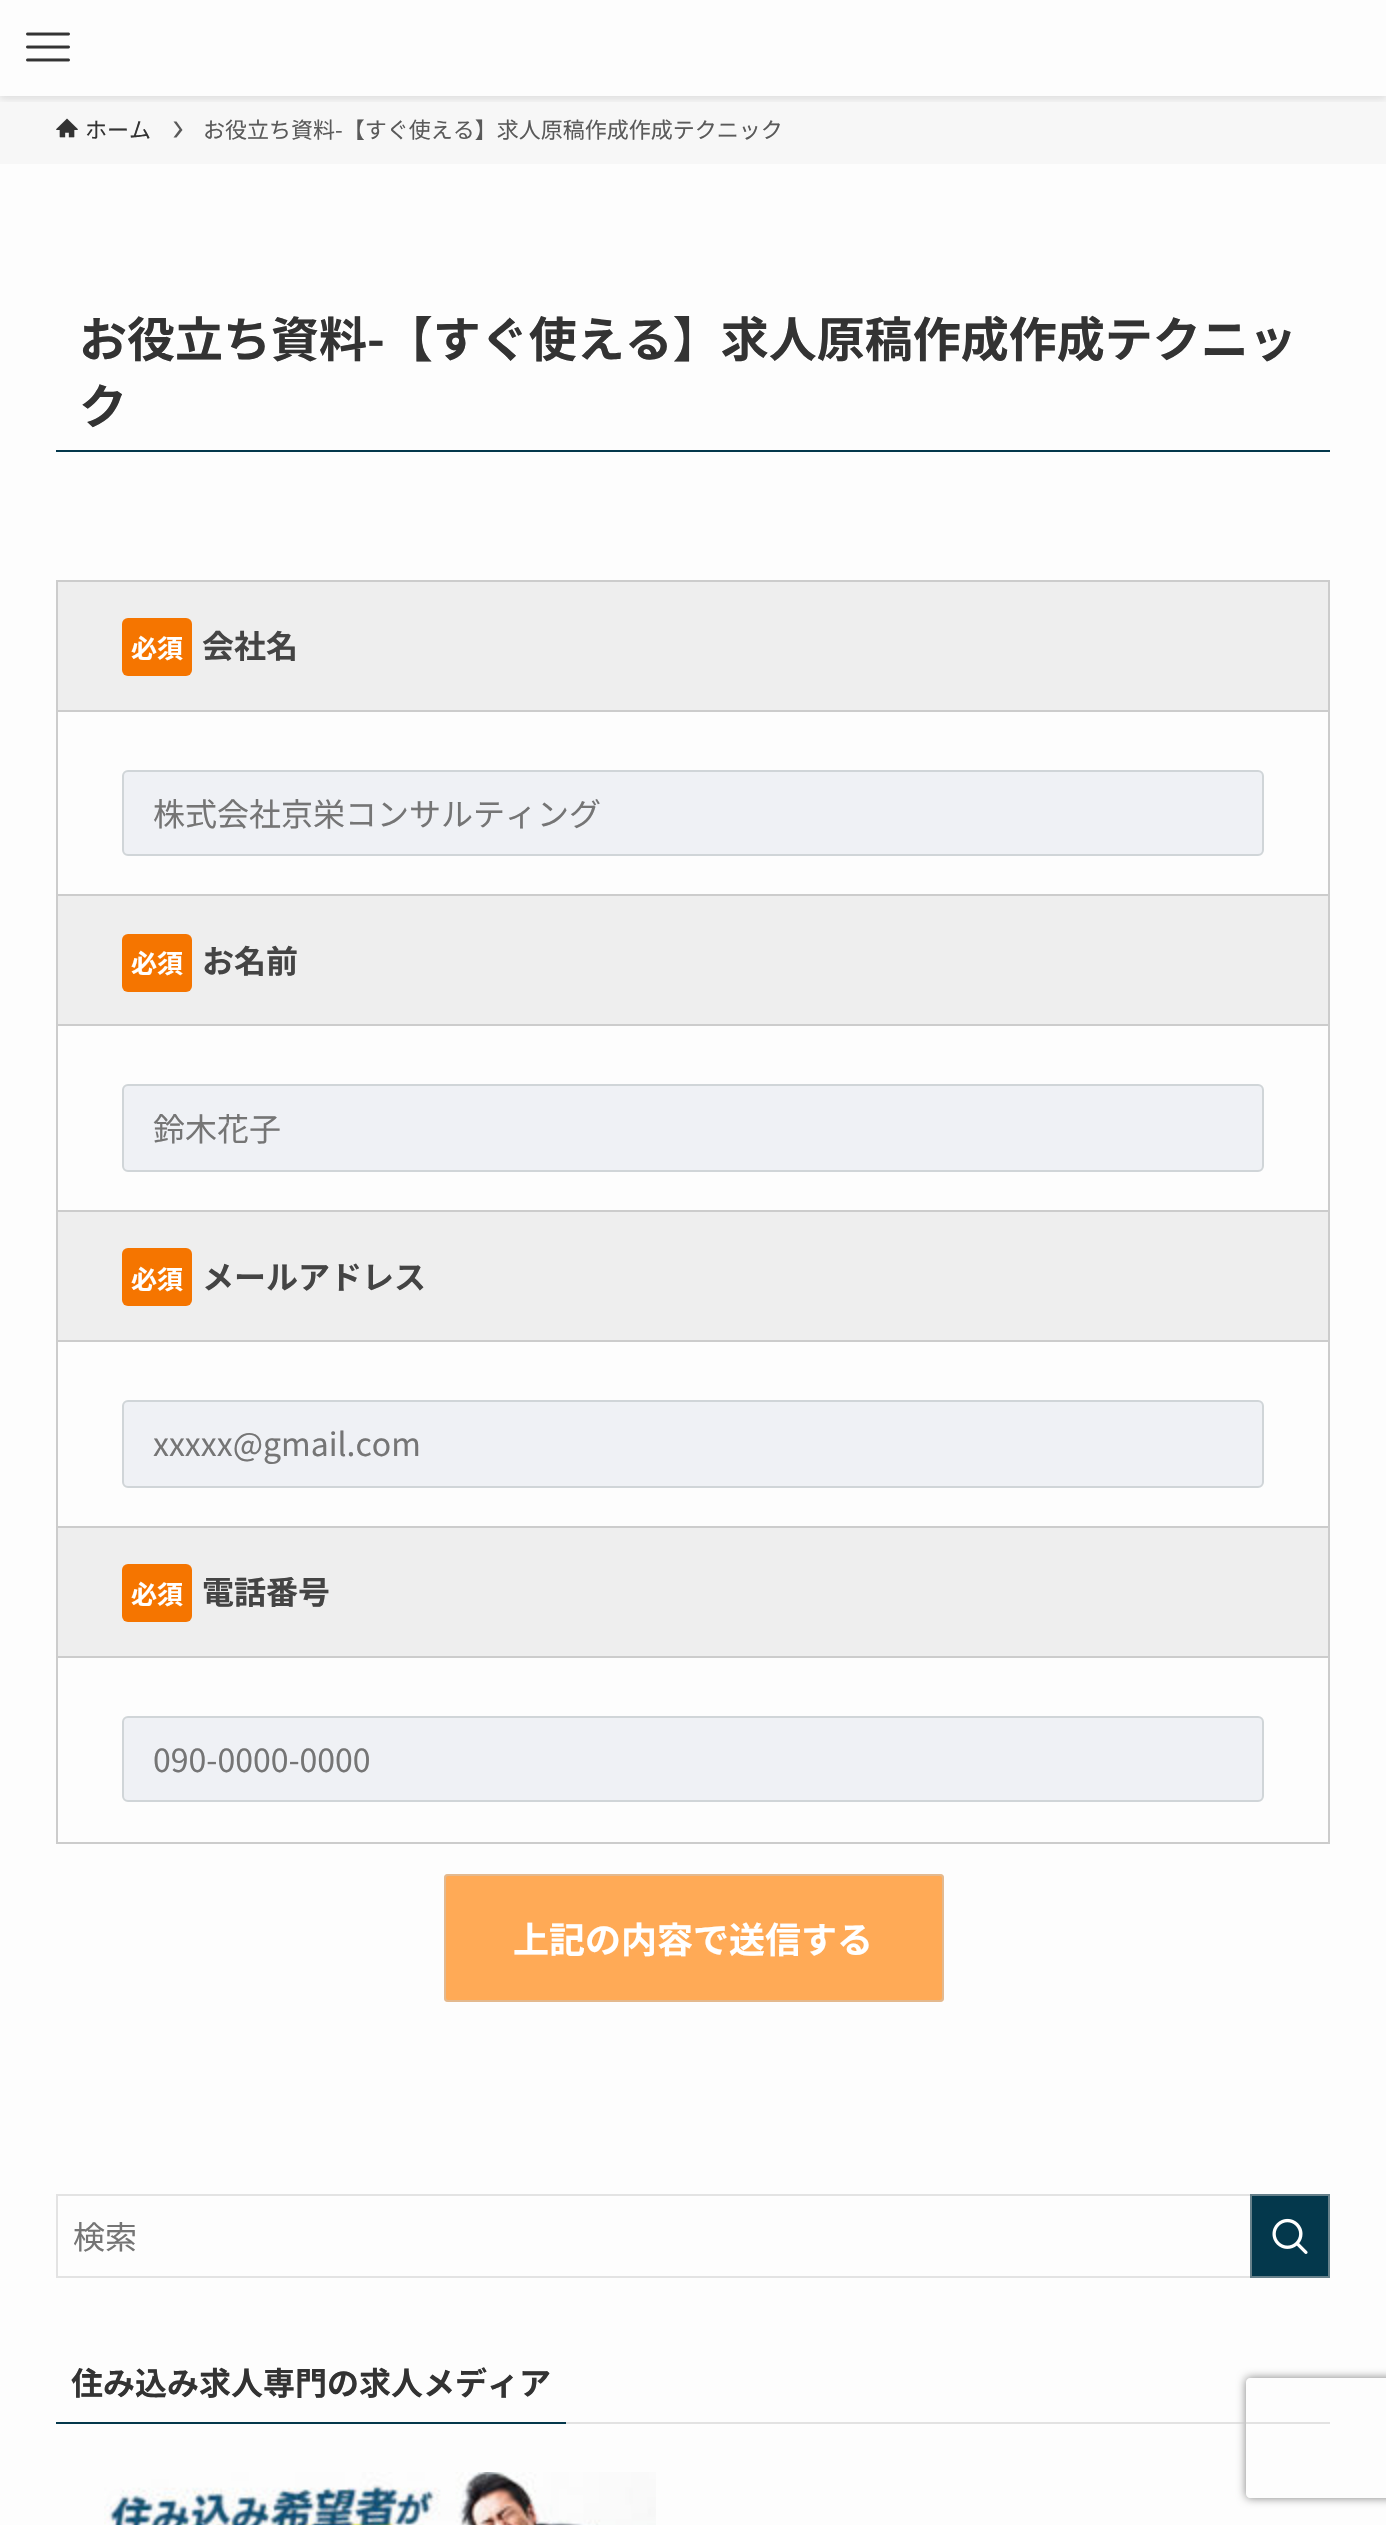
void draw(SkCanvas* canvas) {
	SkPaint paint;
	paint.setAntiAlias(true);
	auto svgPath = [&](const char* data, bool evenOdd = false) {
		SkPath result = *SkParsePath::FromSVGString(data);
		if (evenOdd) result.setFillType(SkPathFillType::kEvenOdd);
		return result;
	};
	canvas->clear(0xfffdfdfd);
	paint.setColor(0xfff7f7f7);
	canvas->drawRect(SkRect::MakeXYWH(0, 96, 1386, 68), paint);
	canvas->save();
	canvas->clipRect(SkRect::MakeXYWH(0, 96, 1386, 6));
	paint.setColor(0x1f000000);
	paint.setMaskFilter(SkMaskFilter::MakeBlur(kNormal_SkBlurStyle, 4));
	canvas->drawRect(SkRect::MakeXYWH(0, 2, 1386, 96), paint);
	paint.setMaskFilter(nullptr);
	canvas->restore();
	canvas->drawImageRect(SkImages::DeferredFromEncodedData(SkData::MakeFromFileName("img1.png")), SkRect::MakeXYWH(26, 32, 44, 30), SkSamplingOptions());
	canvas->drawImageRect(SkImages::DeferredFromEncodedData(SkData::MakeFromFileName("img2.png")), SkRect::MakeXYWH(56, 118, 22, 20), SkSamplingOptions());
	SkFont f1(fontMgr->matchFamilyStyle("Noto Sans JP", SkFontStyle::Normal()), 22);
	f1.setSubpixel(true);
	paint.setColor(0xff333333);
	canvas->drawString("ホーム", 85, 138, f1, paint);
	paint.setColor(0xff5a5a5a);
	canvas->drawPath(svgPath("M176.5 121.5H173.5L179.5 129.5L173.5 137.5H176.5L182.5 130Z"), paint);
	canvas->drawString("お役立ち資料-【すぐ使える】求人原稿作成作成テクニック", 203, 138, f1, paint);
	paint.setColor(0xff04384c);
	canvas->drawRect(SkRect::MakeXYWH(56, 450, 1274, 2), paint);
	SkFont f2(fontMgr->matchFamilyStyle("Noto Sans JP", SkFontStyle::Bold()), 48);
	f2.setSubpixel(true);
	paint.setColor(0xff333333);
	canvas->drawString("お役立ち資料-【すぐ使える】求人原稿作成作成テクニッ", 79, 357, f2, paint);
	canvas->drawString("ク", 79, 424, f2, paint);
	paint.setColor(0xffcccccc);
	canvas->drawRect(SkRect::MakeXYWH(56, 1842, 1274, 2), paint);
	paint.setColor(0xffeeeeee);
	canvas->drawRect(SkRect::MakeXYWH(57, 581, 1272, 130), paint);
	paint.setStroke(true);
	paint.setStrokeWidth(2);
	paint.setColor(0xffcccccc);
	canvas->drawRect(SkRect::MakeXYWH(57, 581, 1272, 130), paint);
	paint.setStroke(false);
	paint.setColor(0xfff57500);
	canvas->drawRoundRect(SkRect::MakeXYWH(122, 618, 70, 58), 6, 6, paint);
	SkFont f3(fontMgr->matchFamilyStyle("Noto Sans JP", SkFontStyle::Bold()), 26);
	f3.setSubpixel(true);
	paint.setColor(0xffffffff);
	canvas->drawString("必須", 131, 658, f3, paint);
	SkFont f4(fontMgr->matchFamilyStyle("Noto Sans JP", SkFontStyle::Bold()), 32);
	f4.setSubpixel(true);
	paint.setColor(0xff444444);
	canvas->drawString("会社名", 202, 658, f4, paint);
	paint.setColor(0xffcccccc);
	canvas->drawRect(SkRect::MakeXYWH(1328, 712, 2, 182), paint);
	canvas->drawRect(SkRect::MakeXYWH(56, 712, 2, 182), paint);
	paint.setColor(0xffeff1f5);
	canvas->drawRoundRect(SkRect::MakeXYWH(123, 771, 1140, 84), 5, 5, paint);
	paint.setStroke(true);
	paint.setColor(0xffd0d5d8);
	canvas->drawRoundRect(SkRect::MakeXYWH(123, 771, 1140, 84), 5, 5, paint);
	SkFont f5(fontMgr->matchFamilyStyle("Noto Sans JP", SkFontStyle::Normal()), 32);
	f5.setSubpixel(true);
	paint.setStroke(false);
	paint.setColor(0xff757575);
	canvas->drawString("株式会社京栄コンサルティング", 153, 826, f5, paint);
	paint.setColor(0xffeeeeee);
	canvas->drawRect(SkRect::MakeXYWH(57, 895, 1272, 130), paint);
	paint.setStroke(true);
	paint.setColor(0xffcccccc);
	canvas->drawRect(SkRect::MakeXYWH(57, 895, 1272, 130), paint);
	paint.setStroke(false);
	paint.setColor(0xfff57500);
	canvas->drawRoundRect(SkRect::MakeXYWH(122, 934, 70, 58), 6, 6, paint);
	paint.setColor(0xffffffff);
	canvas->drawString("必須", 131, 973, f3, paint);
	paint.setColor(0xff444444);
	canvas->drawString("お名前", 202, 973, f4, paint);
	paint.setColor(0xffcccccc);
	canvas->drawRect(SkRect::MakeXYWH(1328, 1026, 2, 184), paint);
	canvas->drawRect(SkRect::MakeXYWH(56, 1026, 2, 184), paint);
	paint.setColor(0xffeff1f5);
	canvas->drawRoundRect(SkRect::MakeXYWH(123, 1085, 1140, 86), 5, 5, paint);
	paint.setStroke(true);
	paint.setColor(0xffd0d5d8);
	canvas->drawRoundRect(SkRect::MakeXYWH(123, 1085, 1140, 86), 5, 5, paint);
	paint.setStroke(false);
	paint.setColor(0xff757575);
	canvas->drawString("鈴木花子", 153, 1141, f5, paint);
	paint.setColor(0xffeeeeee);
	canvas->drawRect(SkRect::MakeXYWH(57, 1211, 1272, 130), paint);
	paint.setStroke(true);
	paint.setColor(0xffcccccc);
	canvas->drawRect(SkRect::MakeXYWH(57, 1211, 1272, 130), paint);
	paint.setStroke(false);
	paint.setColor(0xfff57500);
	canvas->drawRoundRect(SkRect::MakeXYWH(122, 1248, 70, 58), 6, 6, paint);
	paint.setColor(0xffffffff);
	canvas->drawString("必須", 131, 1289, f3, paint);
	paint.setColor(0xff444444);
	canvas->drawString("メールアドレス", 202, 1289, f4, paint);
	paint.setColor(0xffcccccc);
	canvas->drawRect(SkRect::MakeXYWH(1328, 1342, 2, 184), paint);
	canvas->drawRect(SkRect::MakeXYWH(56, 1342, 2, 184), paint);
	paint.setColor(0xffeff1f5);
	canvas->drawRoundRect(SkRect::MakeXYWH(123, 1401, 1140, 86), 5, 5, paint);
	paint.setStroke(true);
	paint.setColor(0xffd0d5d8);
	canvas->drawRoundRect(SkRect::MakeXYWH(123, 1401, 1140, 86), 5, 5, paint);
	paint.setStroke(false);
	paint.setColor(0xff757575);
	canvas->drawString("xxxxx@gmail.com", 153, 1456, f5, paint);
	paint.setColor(0xffeeeeee);
	canvas->drawRect(SkRect::MakeXYWH(57, 1527, 1272, 130), paint);
	paint.setStroke(true);
	paint.setColor(0xffcccccc);
	canvas->drawRect(SkRect::MakeXYWH(57, 1527, 1272, 130), paint);
	paint.setStroke(false);
	paint.setColor(0xfff57500);
	canvas->drawRoundRect(SkRect::MakeXYWH(122, 1564, 70, 58), 6, 6, paint);
	paint.setColor(0xffffffff);
	canvas->drawString("必須", 131, 1604, f3, paint);
	paint.setColor(0xff444444);
	canvas->drawString("電話番号", 202, 1604, f4, paint);
	paint.setColor(0xffcccccc);
	canvas->drawRect(SkRect::MakeXYWH(1328, 1658, 2, 184), paint);
	canvas->drawRect(SkRect::MakeXYWH(56, 1658, 2, 184), paint);
	paint.setColor(0xffeff1f5);
	canvas->drawRoundRect(SkRect::MakeXYWH(123, 1717, 1140, 84), 5, 5, paint);
	paint.setStroke(true);
	paint.setColor(0xffd0d5d8);
	canvas->drawRoundRect(SkRect::MakeXYWH(123, 1717, 1140, 84), 5, 5, paint);
	paint.setStroke(false);
	paint.setColor(0xff757575);
	canvas->drawString("090-0000-0000", 153, 1772, f5, paint);
	paint.setColor(0xffffaa56);
	canvas->drawRoundRect(SkRect::MakeXYWH(444, 1874, 500, 128), 4, 4, paint);
	paint.setStroke(true);
	paint.setColor(0x80c7c7c7);
	canvas->drawRoundRect(SkRect::MakeXYWH(445, 1875, 498, 126), 3, 3, paint);
	SkFont f6(fontMgr->matchFamilyStyle("Noto Sans JP", SkFontStyle::Bold()), 36);
	f6.setSubpixel(true);
	paint.setStroke(false);
	paint.setColor(0xffffffff);
	canvas->drawString("上記の内容で送信する", 513, 1953, f6, paint);
	paint.setStroke(true);
	paint.setColor(0xffe3e3e3);
	canvas->drawRect(SkRect::MakeXYWH(57, 2195, 1272, 82), paint);
	paint.setStroke(false);
	paint.setColor(0xff757575);
	canvas->drawString("検索", 73, 2249, f5, paint);
	paint.setColor(0xff04384c);
	canvas->drawRect(SkRect::MakeXYWH(1251, 2195, 78, 82), paint);
	paint.setStroke(true);
	paint.setColor(0xff66808a);
	canvas->drawRect(SkRect::MakeXYWH(1251, 2195, 78, 82), paint);
	canvas->drawImageRect(SkImages::DeferredFromEncodedData(SkData::MakeFromFileName("img3.png")), SkRect::MakeXYWH(1272, 2218, 36, 36), SkSamplingOptions());
	paint.setStroke(false);
	paint.setColor(0xff333333);
	canvas->drawString("住み込み求人専門の求人メディア", 71, 2395, f4, paint);
	paint.setColor(0xff04384c);
	canvas->drawRect(SkRect::MakeXYWH(56, 2422, 510, 2), paint);
	canvas->save();
	canvas->clipPath(svgPath("M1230 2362H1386V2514H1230ZM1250 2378H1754C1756 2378 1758 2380 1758 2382V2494C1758 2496 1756 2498 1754 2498H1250C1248 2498 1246 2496 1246 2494V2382C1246 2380 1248 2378 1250 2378Z", true), true);
	paint.setColor(0xff808080);
	paint.setMaskFilter(SkMaskFilter::MakeBlur(kNormal_SkBlurStyle, 5));
	canvas->drawRoundRect(SkRect::MakeXYWH(1246, 2378, 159, 120), 4, 4, paint);
	paint.setMaskFilter(nullptr);
	canvas->restore();
	paint.setColor(0x80c7c7c7);
	canvas->drawRect(SkRect::MakeXYWH(566, 2422, 764, 2), paint);
	canvas->drawImageRect(SkImages::DeferredFromEncodedData(SkData::MakeFromFileName("img4.png")), SkRect::MakeXYWH(104, 2472, 552, 53), SkSamplingOptions());
}
